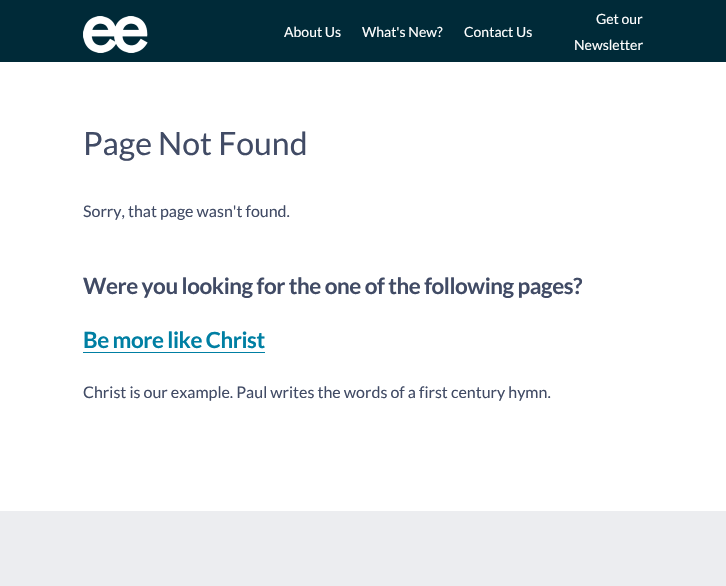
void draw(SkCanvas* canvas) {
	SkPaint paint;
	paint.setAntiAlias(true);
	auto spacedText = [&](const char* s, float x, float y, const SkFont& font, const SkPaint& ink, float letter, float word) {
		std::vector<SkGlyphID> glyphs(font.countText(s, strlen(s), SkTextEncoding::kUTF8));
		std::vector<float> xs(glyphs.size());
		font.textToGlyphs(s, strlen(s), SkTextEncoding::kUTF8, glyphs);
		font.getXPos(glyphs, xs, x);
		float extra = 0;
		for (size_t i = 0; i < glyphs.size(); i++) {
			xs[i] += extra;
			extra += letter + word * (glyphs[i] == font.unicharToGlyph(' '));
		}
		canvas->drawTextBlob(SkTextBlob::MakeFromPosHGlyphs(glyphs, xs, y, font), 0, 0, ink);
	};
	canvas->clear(0xffffffff);
	paint.setColor(0xff002a38);
	canvas->drawRect(SkRect::MakeXYWH(0, 0, 726, 62), paint);
	canvas->drawImageRect(SkImages::DeferredFromEncodedData(SkData::MakeFromFileName("img1.png")), SkRect::MakeXYWH(83, 16, 65, 37), SkSamplingOptions());
	SkFont f1(fontMgr->matchFamilyStyle("Lato", SkFontStyle::Normal()), 14);
	f1.setSubpixel(true);
	paint.setColor(0xffffffff);
	canvas->drawString("About Us", 284, 37, f1, paint);
	canvas->drawString("What's New?", 362, 37, f1, paint);
	canvas->drawString("Contact Us", 464, 37, f1, paint);
	canvas->drawString("Get our", 596, 24, f1, paint);
	canvas->drawString("Newsletter", 574, 50, f1, paint);
	SkFont f2(fontMgr->matchFamilyStyle("Lato", SkFontStyle::Normal()), 32);
	f2.setSubpixel(true);
	paint.setColor(0xff414b65);
	canvas->drawString("Page Not Found", 83, 155, f2, paint);
	SkFont f3(fontMgr->matchFamilyStyle("Lato", SkFontStyle::Normal()), 16);
	f3.setSubpixel(true);
	canvas->drawString("Sorry, that page wasn't found.", 83, 217, f3, paint);
	SkFont f4(fontMgr->matchFamilyStyle("Lato", SkFontStyle::Bold()), 22.4);
	f4.setSubpixel(true);
	spacedText("Were you looking for the one of the following pages?", 83, 294, f4, paint, -0.45, 0);
	paint.setColor(0xff007fa3);
	spacedText("Be more like Christ", 83, 348, f4, paint, -0.45, 0);
	canvas->drawRect(SkRect::MakeXYWH(83, 352, 182, 1), paint);
	paint.setColor(0xff414b65);
	canvas->drawString("Christ is our example. Paul writes the words of a first century hymn.", 83, 398, f3, paint);
	paint.setColor(0xffecedf0);
	canvas->drawRect(SkRect::MakeXYWH(0, 511, 726, 75), paint);
}
